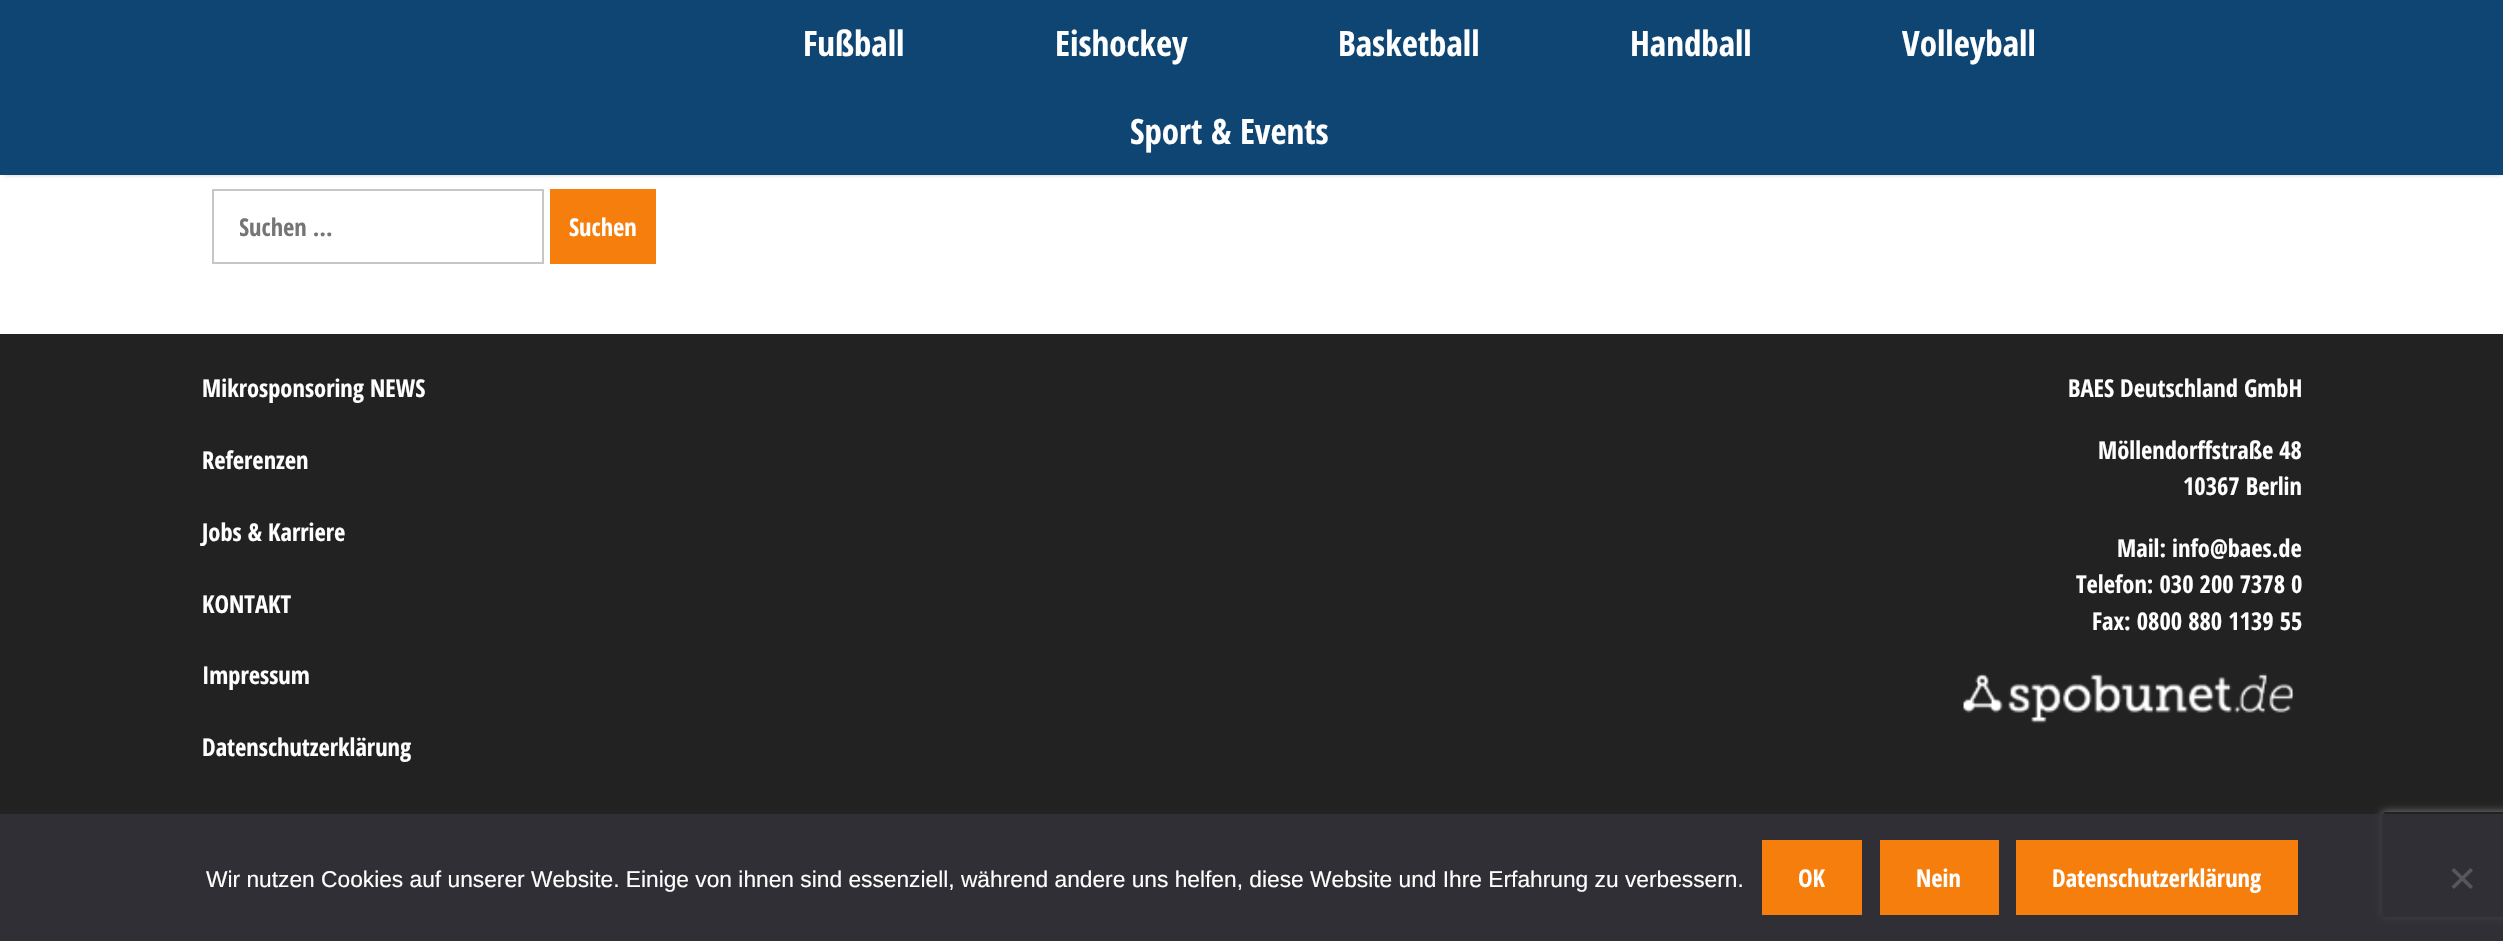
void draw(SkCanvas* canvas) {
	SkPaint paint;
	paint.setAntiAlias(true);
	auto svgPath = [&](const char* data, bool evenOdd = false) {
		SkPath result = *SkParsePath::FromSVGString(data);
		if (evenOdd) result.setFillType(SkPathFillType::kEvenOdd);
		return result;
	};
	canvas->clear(0xffffffff);
	paint.setColor(0x33000000);
	paint.setMaskFilter(SkMaskFilter::MakeBlur(kNormal_SkBlurStyle, 2));
	canvas->drawRect(SkRect::MakeXYWH(4, 7, 2497, 168), paint);
	paint.setMaskFilter(nullptr);
	paint.setColor(0xff0f4572);
	canvas->drawRect(SkRect::MakeXYWH(0, 0, 2503, 175), paint);
	SkFont f1(fontMgr->matchFamilyStyle("Open Sans Condensed", SkFontStyle::Bold()), 35);
	f1.setSubpixel(true);
	paint.setColor(0xffffffff);
	canvas->drawString("Fußball", 803, 56, f1, paint);
	canvas->drawString("Eishockey", 1055, 56, f1, paint);
	canvas->drawString("Basketball", 1338, 56, f1, paint);
	canvas->drawString("Handball", 1630, 56, f1, paint);
	canvas->drawString("Volleyball", 1902, 56, f1, paint);
	canvas->drawString("Sport & Events", 1130, 144, f1, paint);
	paint.setStroke(true);
	paint.setStrokeWidth(2);
	paint.setColor(0xffc6c6c6);
	canvas->drawRect(SkRect::MakeXYWH(213, 190, 330, 73), paint);
	canvas->save();
	canvas->clipRect(SkRect::MakeXYWH(240, 210, 252, 33));
	SkFont f2(fontMgr->matchFamilyStyle("Open Sans Condensed", SkFontStyle::Bold()), 24.5);
	f2.setSubpixel(true);
	paint.setStroke(false);
	paint.setColor(0xff757575);
	canvas->drawString("Suchen …", 239, 236, f2, paint);
	canvas->restore();
	paint.setColor(0xfff67e0d);
	canvas->drawRect(SkRect::MakeXYWH(550, 189, 106, 75), paint);
	paint.setColor(0xffffffff);
	canvas->drawString("Suchen", 569, 236, f2, paint);
	paint.setColor(0xff222222);
	canvas->drawRect(SkRect::MakeXYWH(0, 334, 2503, 607), paint);
	paint.setColor(0xffffffff);
	canvas->drawString("Mikrosponsoring NEWS", 202, 397, f2, paint);
	canvas->drawString("Referenzen", 202, 469, f2, paint);
	canvas->drawString("Jobs & Karriere", 202, 541, f2, paint);
	canvas->drawString("KONTAKT", 202, 613, f2, paint);
	canvas->drawString("Impressum", 202, 684, f2, paint);
	canvas->drawString("Datenschutzerklärung", 202, 756, f2, paint);
	canvas->drawString("BAES Deutschland GmbH", 2068, 397, f2, paint);
	canvas->drawString("Möllendorffstraße 48", 2098, 459, f2, paint);
	canvas->drawString("10367 Berlin", 2183, 495, f2, paint);
	canvas->drawString("Mail: info@baes.de", 2117, 557, f2, paint);
	canvas->drawString("Telefon: 030 200 7378 0", 2076, 593, f2, paint);
	canvas->drawString("Fax: 0800 880 1139 55", 2092, 630, f2, paint);
	canvas->drawImageRect(SkImages::DeferredFromEncodedData(SkData::MakeFromFileName("img1.png")), SkRect::MakeXYWH(1963, 673, 331, 51), SkSamplingOptions());
	canvas->save();
	canvas->clipPath(svgPath("M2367 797H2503V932H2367ZM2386 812H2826C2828 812 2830 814 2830 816V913C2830 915 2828 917 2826 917H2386C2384 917 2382 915 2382 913V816C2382 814 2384 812 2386 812Z", true), true);
	paint.setColor(0xff808080);
	paint.setMaskFilter(SkMaskFilter::MakeBlur(kNormal_SkBlurStyle, 4.5));
	canvas->drawRoundRect(SkRect::MakeXYWH(2382, 812, 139, 105), 4, 4, paint);
	paint.setMaskFilter(nullptr);
	canvas->restore();
	paint.setColor(0xcc32323a);
	canvas->drawRect(SkRect::MakeXYWH(0, 814, 2503, 127), paint);
	SkFont f3(fontMgr->matchFamilyStyle("Liberation Sans", SkFontStyle::Normal()), 22.75);
	f3.setSubpixel(true);
	paint.setColor(0xffffffff);
	canvas->drawString("Wir nutzen Cookies auf unserer Website. Einige von ihnen sind essenziell, während andere uns helfen, diese Website und Ihre Erfahrung zu verbessern.", 206, 887, f3, paint);
	paint.setColor(0xfff67e0d);
	canvas->drawRect(SkRect::MakeXYWH(1762, 840, 100, 75), paint);
	paint.setColor(0xffffffff);
	canvas->drawString("OK", 1798, 887, f2, paint);
	paint.setColor(0xfff67e0d);
	canvas->drawRect(SkRect::MakeXYWH(1880, 840, 119, 75), paint);
	paint.setColor(0xffffffff);
	canvas->drawString("Nein", 1916, 887, f2, paint);
	paint.setColor(0xfff67e0d);
	canvas->drawRect(SkRect::MakeXYWH(2016, 840, 282, 75), paint);
	paint.setColor(0xffffffff);
	canvas->drawString("Datenschutzerklärung", 2052, 887, f2, paint);
	paint.setColor(0xff57575b);
	canvas->drawPath(svgPath("M2470.5 868L2473 870.5L2454 889L2451.5 886.5Z"), paint);
	canvas->drawPath(svgPath("M2451.5 870.5L2454 868L2473 886.5L2470.5 889Z"), paint);
}
